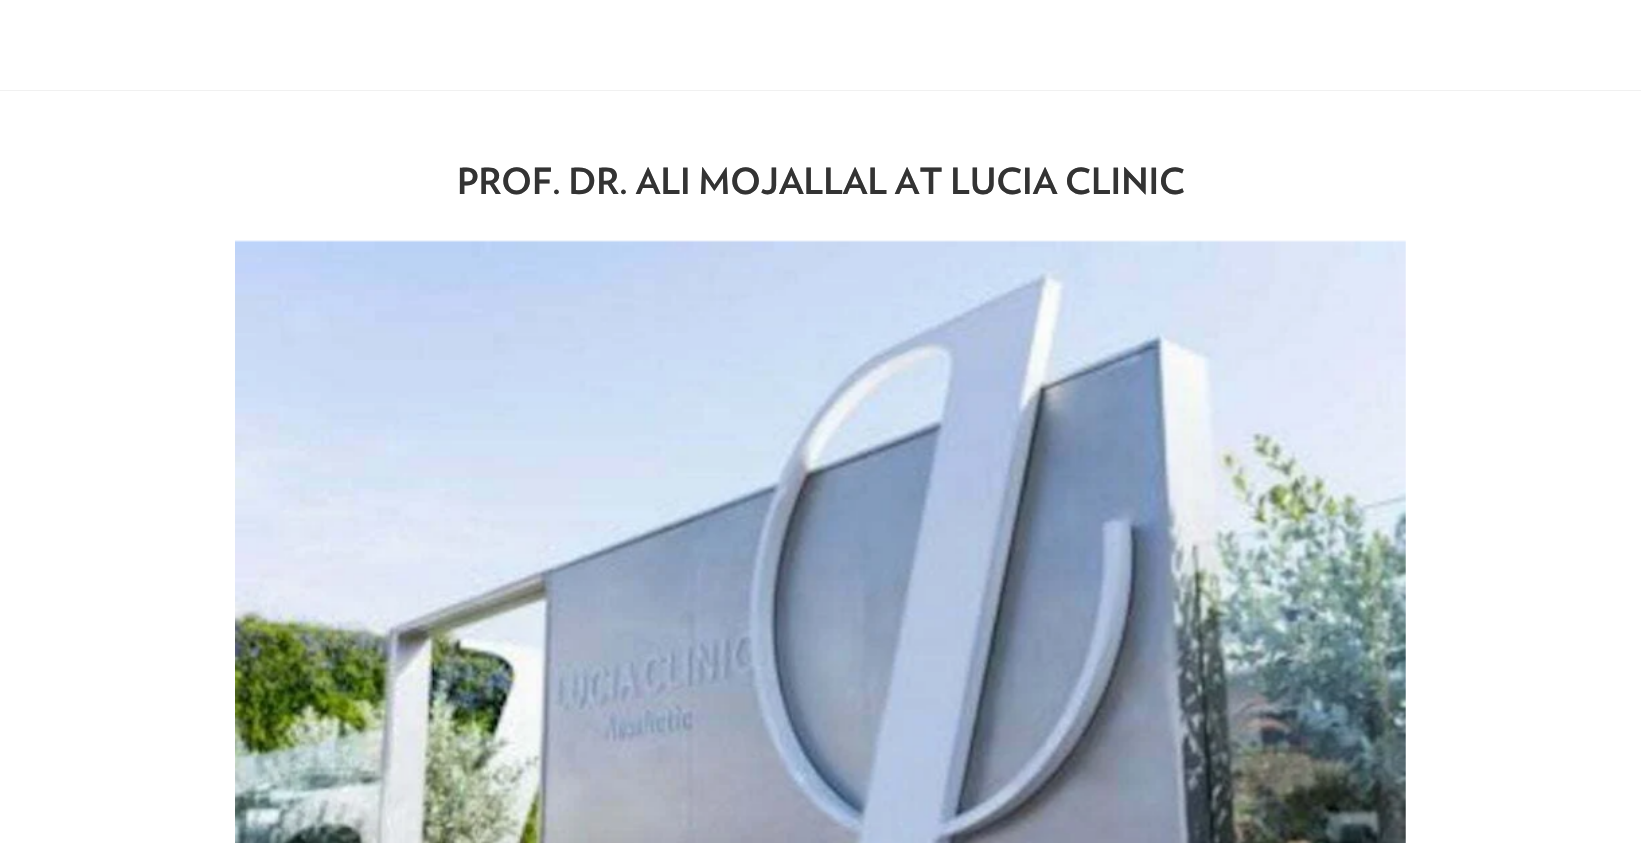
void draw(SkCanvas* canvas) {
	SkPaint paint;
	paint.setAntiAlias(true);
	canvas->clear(0xffffffff);
	paint.setColor(0xfff1f1f1);
	canvas->drawRect(SkRect::MakeXYWH(0, 90, 1641, 1), paint);
	SkFont f1(fontMgr->matchFamilyStyle("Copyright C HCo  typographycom", SkFontStyle::Normal()), 36);
	f1.setSubpixel(true);
	paint.setColor(0xff333333);
	canvas->drawString("PROF. DR. ALI MOJALLAL AT LUCIA CLINIC", 457, 194, f1, paint);
	canvas->drawImageRect(SkImages::DeferredFromEncodedData(SkData::MakeFromFileName("img1.png")), SkRect::MakeXYWH(235, 240, 1171, 603), SkSamplingOptions());
}
